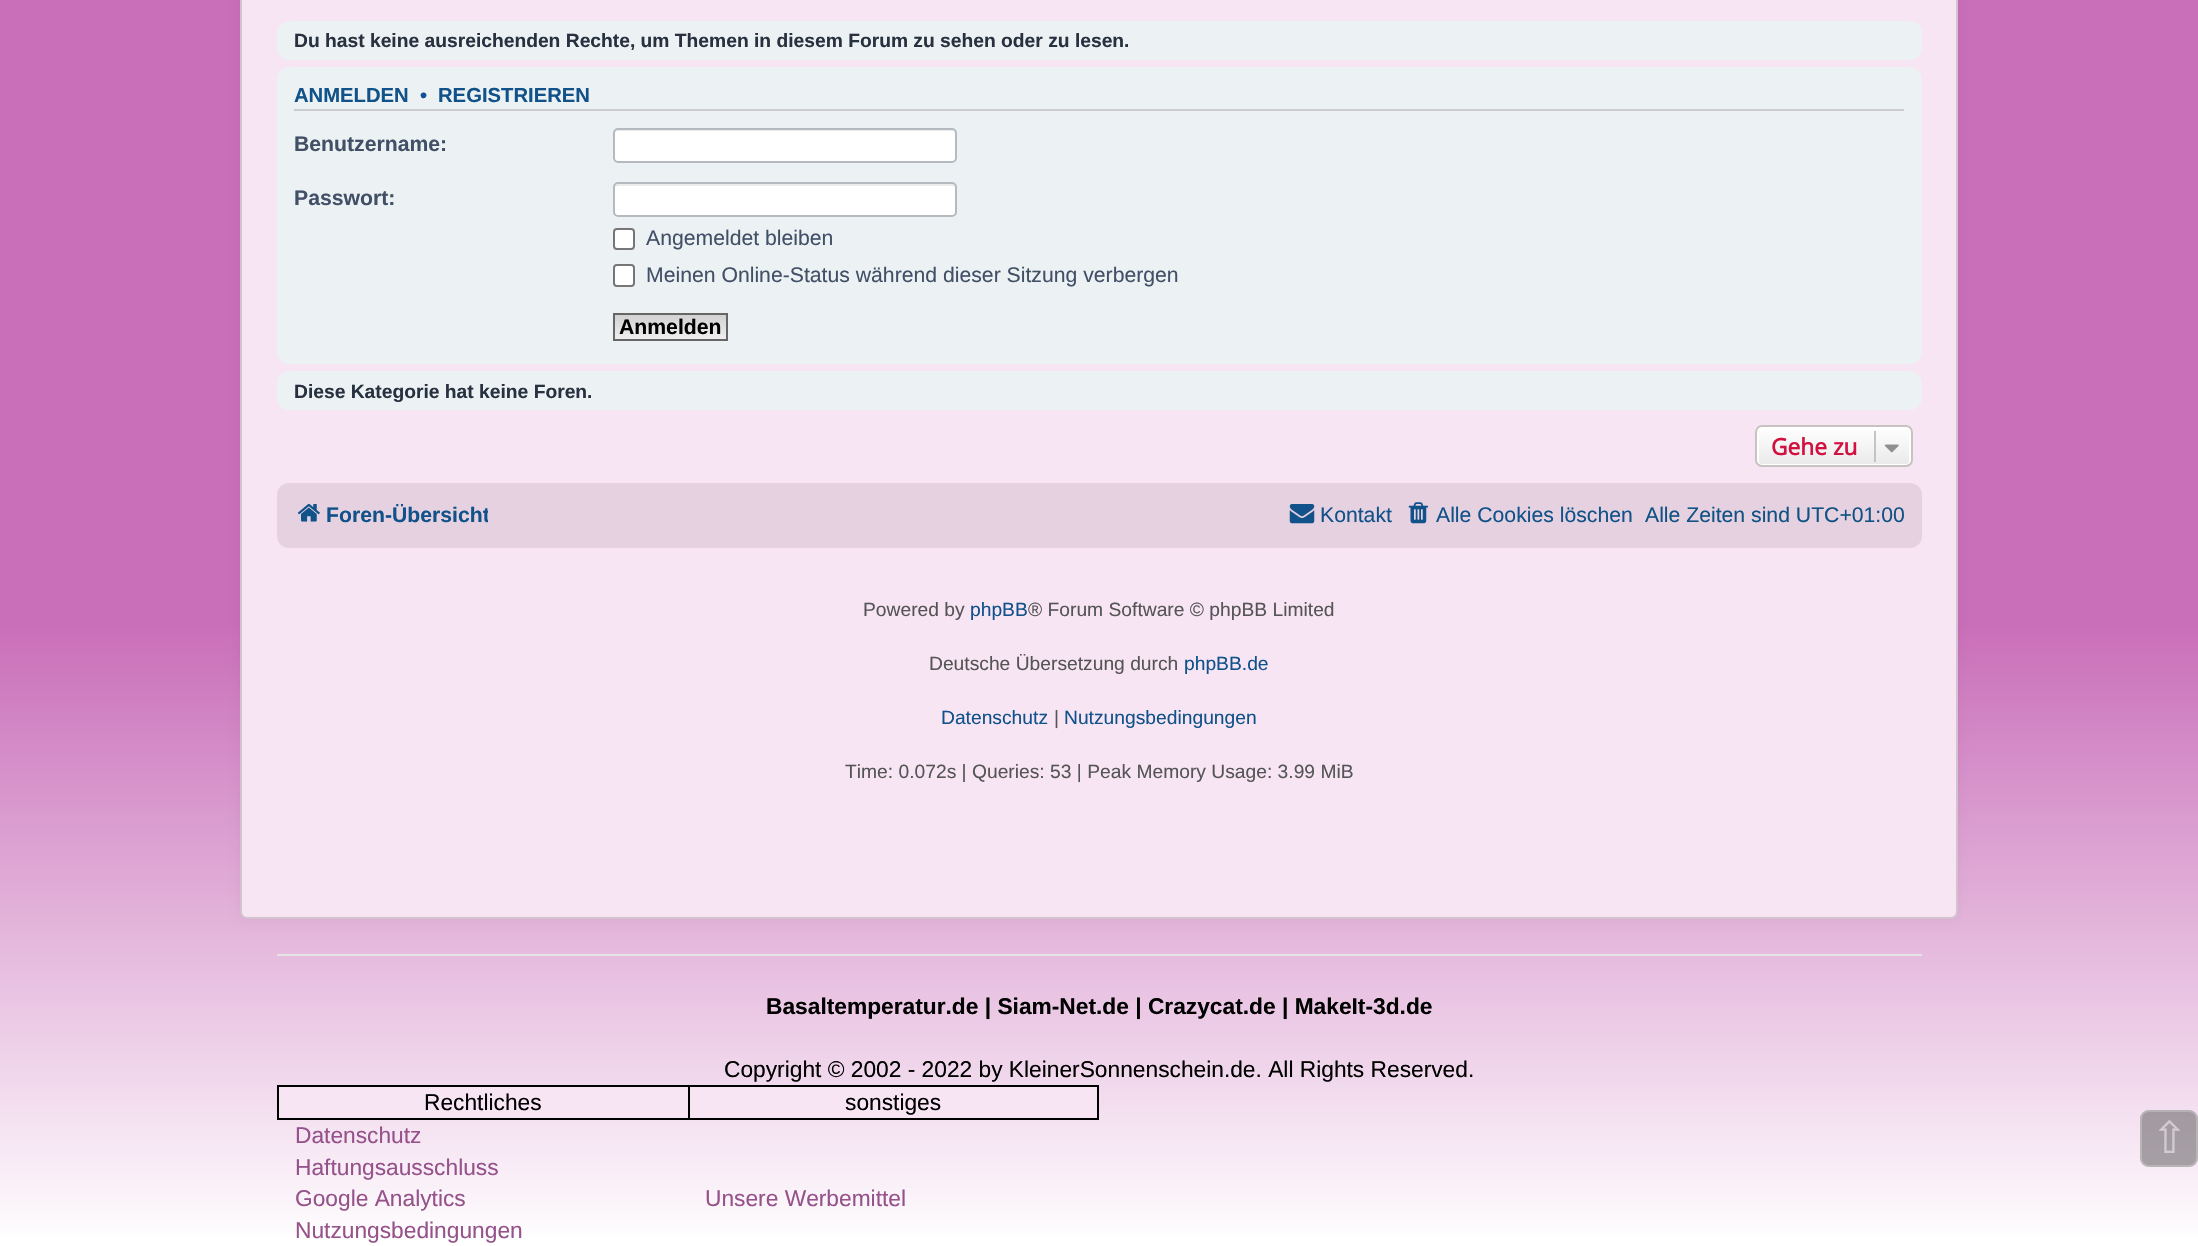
void draw(SkCanvas* canvas) {
	SkPaint paint;
	paint.setAntiAlias(true);
	auto svgPath = [&](const char* data, bool evenOdd = false) {
		SkPath result = *SkParsePath::FromSVGString(data);
		if (evenOdd) result.setFillType(SkPathFillType::kEvenOdd);
		return result;
	};
	canvas->clear(0xffffffff);
	{
		const SkColor colors[] = {0xffffffff, 0xffc96eb9};
		const float stops[] = {0, 0.5};
		const SkPoint ends[] = {{1099, 1246}, {1099, 0}};
		paint.setShader(SkGradientShader::MakeLinear(ends, colors, stops, 2, SkTileMode::kClamp));
		paint.setAlpha(255);
	}
	canvas->drawRect(SkRect::MakeXYWH(0, 0, 2198, 1235), paint);
	paint.setShader(nullptr);
	paint.setColor(0x0d000000);
	paint.setMaskFilter(SkMaskFilter::MakeBlur(kNormal_SkBlurStyle, 5));
	canvas->drawRoundRect(SkRect::MakeXYWH(240, -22, 1718, 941), 7, 7, paint);
	paint.setMaskFilter(nullptr);
	paint.setColor(0xfff8e5f4);
	canvas->drawRoundRect(SkRect::MakeXYWH(240, -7, 1718, 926), 7, 7, paint);
	paint.setStroke(true);
	paint.setStrokeWidth(2);
	paint.setColor(0x26000000);
	canvas->drawRoundRect(SkRect::MakeXYWH(241, -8, 1716, 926), 6, 6, paint);
	paint.setStroke(false);
	paint.setColor(0xffecf1f3);
	canvas->drawRoundRect(SkRect::MakeXYWH(277, 21, 1645, 39), 12, 12, paint);
	SkFont f1(fontMgr->matchFamilyStyle("Liberation Sans", SkFontStyle::Bold()), 19.25);
	f1.setSubpixel(true);
	paint.setColor(0xff28313f);
	canvas->drawString("Du hast keine ausreichenden Rechte, um Themen in diesem Forum zu sehen oder zu lesen.", 294, 47, f1, paint);
	paint.setColor(0xffecf1f3);
	canvas->drawRoundRect(SkRect::MakeXYWH(277, 67, 1645, 297), 12, 12, paint);
	paint.setColor(0xffcccccc);
	canvas->drawRect(SkRect::MakeXYWH(294, 109, 1610, 2), paint);
	SkFont f2(fontMgr->matchFamilyStyle("Liberation Sans", SkFontStyle::Bold()), 20.25);
	f2.setSubpixel(true);
	paint.setColor(0xff105289);
	canvas->drawString("ANMELDEN", 294, 102, f2, paint);
	paint.setColor(0xff115098);
	canvas->drawString("•", 420, 102, f2, paint);
	paint.setColor(0xff105289);
	canvas->drawString("REGISTRIEREN", 438, 102, f2, paint);
	SkFont f3(fontMgr->matchFamilyStyle("Liberation Sans", SkFontStyle::Bold()), 21.2);
	f3.setSubpixel(true);
	paint.setColor(0xff425067);
	canvas->drawString("Benutzername:", 294, 151, f3, paint);
	paint.setColor(0xffffffff);
	canvas->drawRoundRect(SkRect::MakeXYWH(613, 128, 344, 35), 5, 5, paint);
	paint.setColor(0xffececec);
	canvas->drawPath(svgPath("M618 131H952C954 131 956 133 956 135V134C956 132 954 130 952 130H618C616 130 614 132 614 134V135C614 133 616 131 618 131Z"), paint);
	paint.setStroke(true);
	paint.setColor(0xffb4bac0);
	canvas->drawRoundRect(SkRect::MakeXYWH(614, 129, 342, 33), 4, 4, paint);
	paint.setStroke(false);
	paint.setColor(0xff425067);
	canvas->drawString("Passwort:", 294, 205, f3, paint);
	paint.setColor(0xffffffff);
	canvas->drawRoundRect(SkRect::MakeXYWH(613, 182, 344, 35), 5, 5, paint);
	paint.setColor(0xffececec);
	canvas->drawPath(svgPath("M618 186H952C954 186 956 187 956 189V188C956 186 954 184 952 184H618C616 184 614 186 614 188V189C614 187 616 186 618 186Z"), paint);
	paint.setStroke(true);
	paint.setColor(0xffb4bac0);
	canvas->drawRoundRect(SkRect::MakeXYWH(614, 183, 342, 33), 4, 4, paint);
	paint.setStroke(false);
	paint.setColor(0xffffffff);
	canvas->drawRoundRect(SkRect::MakeXYWH(614, 229, 20, 20), 3, 3, paint);
	paint.setStroke(true);
	paint.setColor(0xff767676);
	canvas->drawRoundRect(SkRect::MakeXYWH(614, 229, 20, 20), 3, 3, paint);
	SkFont f4(fontMgr->matchFamilyStyle("Liberation Sans", SkFontStyle::Normal()), 21.2);
	f4.setSubpixel(true);
	paint.setStroke(false);
	paint.setColor(0xff425067);
	canvas->drawString("Angemeldet bleiben", 646, 245, f4, paint);
	paint.setColor(0xffffffff);
	canvas->drawRoundRect(SkRect::MakeXYWH(614, 265, 20, 21), 3, 3, paint);
	paint.setStroke(true);
	paint.setColor(0xff767676);
	canvas->drawRoundRect(SkRect::MakeXYWH(614, 265, 20, 21), 3, 3, paint);
	paint.setStroke(false);
	paint.setColor(0xff425067);
	canvas->drawString("Meinen Online-Status während dieser Sitzung verbergen", 646, 282, f4, paint);
	{
		const SkColor colors[] = {0xffd2d2d2, 0xffefefef};
		const float stops[] = {0, 1};
		const SkPoint ends[] = {{670, 315}, {670, 340}};
		paint.setShader(SkGradientShader::MakeLinear(ends, colors, stops, 2, SkTileMode::kClamp));
		paint.setAlpha(255);
	}
	canvas->drawRect(SkRect::MakeXYWH(615, 315, 111, 24), paint);
	paint.setStroke(true);
	paint.setShader(nullptr);
	paint.setColor(0xff666666);
	canvas->drawRect(SkRect::MakeXYWH(614, 314, 113, 26), paint);
	paint.setStroke(false);
	paint.setColor(0xff000000);
	canvas->drawString("Anmelden", 619, 334, f3, paint);
	paint.setColor(0xffecf1f3);
	canvas->drawRoundRect(SkRect::MakeXYWH(277, 371, 1645, 39), 12, 12, paint);
	paint.setColor(0xff28313f);
	canvas->drawString("Diese Kategorie hat keine Foren.", 294, 398, f1, paint);
	canvas->save();
	canvas->clipPath(svgPath("M1762 425H1906C1910 425 1913 428 1913 432V460C1913 464 1910 467 1906 467H1762C1758 467 1755 464 1755 460V432C1755 428 1758 425 1762 425Z"), true);
	{
		const SkColor colors[] = {0xffffffff, 0xffe9e9e9};
		const float stops[] = {0, 1};
		const SkPoint ends[] = {{1834, 427}, {1834, 466}};
		paint.setShader(SkGradientShader::MakeLinear(ends, colors, stops, 2, SkTileMode::kClamp));
		paint.setAlpha(255);
	}
	canvas->drawRect(SkRect::MakeXYWH(1755, 427, 158, 39), paint);
	canvas->restore();
	paint.setStroke(true);
	paint.setShader(nullptr);
	paint.setColor(0xffffffff);
	canvas->drawRoundRect(SkRect::MakeXYWH(1758, 428, 152, 37), 4, 4, paint);
	paint.setColor(0xffc7c3bf);
	canvas->drawRoundRect(SkRect::MakeXYWH(1756, 426, 156, 40), 6, 6, paint);
	SkFont f5(fontMgr->matchFamilyStyle("Open Sans", SkFontStyle::Bold()), 22.75);
	f5.setSubpixel(true);
	paint.setStroke(false);
	paint.setColor(0xffd31141);
	canvas->drawString("Gehe zu", 1771, 455, f5, paint);
	paint.setColor(0xffc7c3bf);
	canvas->drawRect(SkRect::MakeXYWH(1874, 431, 2, 31), paint);
	canvas->drawImageRect(SkImages::DeferredFromEncodedData(SkData::MakeFromFileName("img1.png")), SkRect::MakeXYWH(1884, 444, 15, 9), SkSamplingOptions());
	paint.setColor(0xffe6d1e0);
	canvas->drawRoundRect(SkRect::MakeXYWH(277, 483, 1645, 65), 12, 12, paint);
	canvas->drawImageRect(SkImages::DeferredFromEncodedData(SkData::MakeFromFileName("img2.png")), SkRect::MakeXYWH(297, 504, 23, 18), SkSamplingOptions());
	canvas->save();
	canvas->clipRect(SkRect::MakeXYWH(294, 492, 194, 47));
	paint.setColor(0xff105289);
	canvas->drawString("Foren-Übersicht", 326, 522, f3, paint);
	canvas->restore();
	canvas->drawImageRect(SkImages::DeferredFromEncodedData(SkData::MakeFromFileName("img3.png")), SkRect::MakeXYWH(1289, 504, 26, 20), SkSamplingOptions());
	canvas->drawString("Kontakt", 1320, 522, f4, paint);
	canvas->drawImageRect(SkImages::DeferredFromEncodedData(SkData::MakeFromFileName("img4.png")), SkRect::MakeXYWH(1408, 502, 20, 22), SkSamplingOptions());
	canvas->drawString("Alle Cookies löschen", 1436, 522, f4, paint);
	paint.setColor(0xff105283);
	canvas->drawString("Alle Zeiten sind UTC+01:00", 1645, 522, f4, paint);
	SkFont f6(fontMgr->matchFamilyStyle("Liberation Sans", SkFontStyle::Normal()), 19.25);
	f6.setSubpixel(true);
	paint.setColor(0xff555555);
	canvas->drawString("Powered by", 863, 616, f6, paint);
	paint.setColor(0xff105289);
	canvas->drawString("phpBB", 970, 616, f6, paint);
	paint.setColor(0xff555555);
	canvas->drawString("® Forum Software © phpBB Limited", 1028, 616, f6, paint);
	canvas->drawString("Deutsche Übersetzung durch", 929, 670, f6, paint);
	paint.setColor(0xff105289);
	canvas->drawString("phpBB.de", 1184, 670, f6, paint);
	canvas->drawString("Datenschutz", 941, 724, f6, paint);
	paint.setColor(0xff555555);
	canvas->drawString("|", 1054, 724, f6, paint);
	paint.setColor(0xff105289);
	canvas->drawString("Nutzungsbedingungen", 1064, 724, f6, paint);
	paint.setColor(0xff555555);
	canvas->drawString("Time: 0.072s | Queries: 53 | Peak Memory Usage: 3.99 MiB", 845, 778, f6, paint);
	paint.setColor(0x7d4f4f4f);
	canvas->drawRoundRect(SkRect::MakeXYWH(2140, 1110, 58, 57), 9, 9, paint);
	paint.setStroke(true);
	paint.setColor(0x7dcccccc);
	canvas->drawRoundRect(SkRect::MakeXYWH(2141, 1111, 56, 55), 8, 8, paint);
	SkFont f7(fontMgr->matchFamilyStyle("DejaVu Sans", SkFontStyle::Normal()), 44);
	f7.setSubpixel(true);
	paint.setStroke(false);
	paint.setColor(0xffd1ccd0);
	canvas->drawString("⇧", 2151, 1153, f7, paint);
	paint.setColor(0xffe5e5e5);
	canvas->drawRect(SkRect::MakeXYWH(277, 954, 1645, 2), paint);
	SkFont f8(fontMgr->matchFamilyStyle("Liberation Sans", SkFontStyle::Bold()), 22.75);
	f8.setSubpixel(true);
	paint.setColor(0xff000000);
	canvas->drawString("Basaltemperatur.de | Siam-Net.de | Crazycat.de | MakeIt-3d.de", 766, 1014, f8, paint);
	SkFont f9(fontMgr->matchFamilyStyle("Liberation Sans", SkFontStyle::Normal()), 22.75);
	f9.setSubpixel(true);
	canvas->drawString("Copyright © 2002 - 2022 by KleinerSonnenschein.de. All Rights Reserved.", 724, 1077, f9, paint);
	paint.setColor(0xfff8e5f4);
	canvas->drawRect(SkRect::MakeXYWH(279, 1087, 409, 31), paint);
	paint.setColor(0xff000000);
	canvas->drawRect(SkRect::MakeXYWH(688, 1085, 411, 2), paint);
	canvas->drawRect(SkRect::MakeXYWH(1097, 1085, 2, 35), paint);
	canvas->drawRect(SkRect::MakeXYWH(688, 1118, 411, 2), paint);
	canvas->drawRect(SkRect::MakeXYWH(688, 1085, 2, 35), paint);
	canvas->drawRect(SkRect::MakeXYWH(277, 1085, 413, 2), paint);
	canvas->drawRect(SkRect::MakeXYWH(277, 1118, 413, 2), paint);
	canvas->drawRect(SkRect::MakeXYWH(277, 1085, 2, 35), paint);
	canvas->drawString("Rechtliches", 424, 1110, f9, paint);
	paint.setColor(0xfff8e5f4);
	canvas->drawRect(SkRect::MakeXYWH(690, 1087, 407, 31), paint);
	paint.setColor(0xff000000);
	canvas->drawString("sonstiges", 845, 1110, f9, paint);
	paint.setColor(0xff96528b);
	canvas->drawString("Datenschutz", 295, 1143, f9, paint);
	canvas->drawString("Haftungsausschluss", 295, 1175, f9, paint);
	canvas->drawString("Google Analytics", 295, 1206, f9, paint);
	canvas->drawString("Nutzungsbedingungen", 295, 1238, f9, paint);
	canvas->drawString("Unsere Werbemittel", 705, 1206, f9, paint);
}
